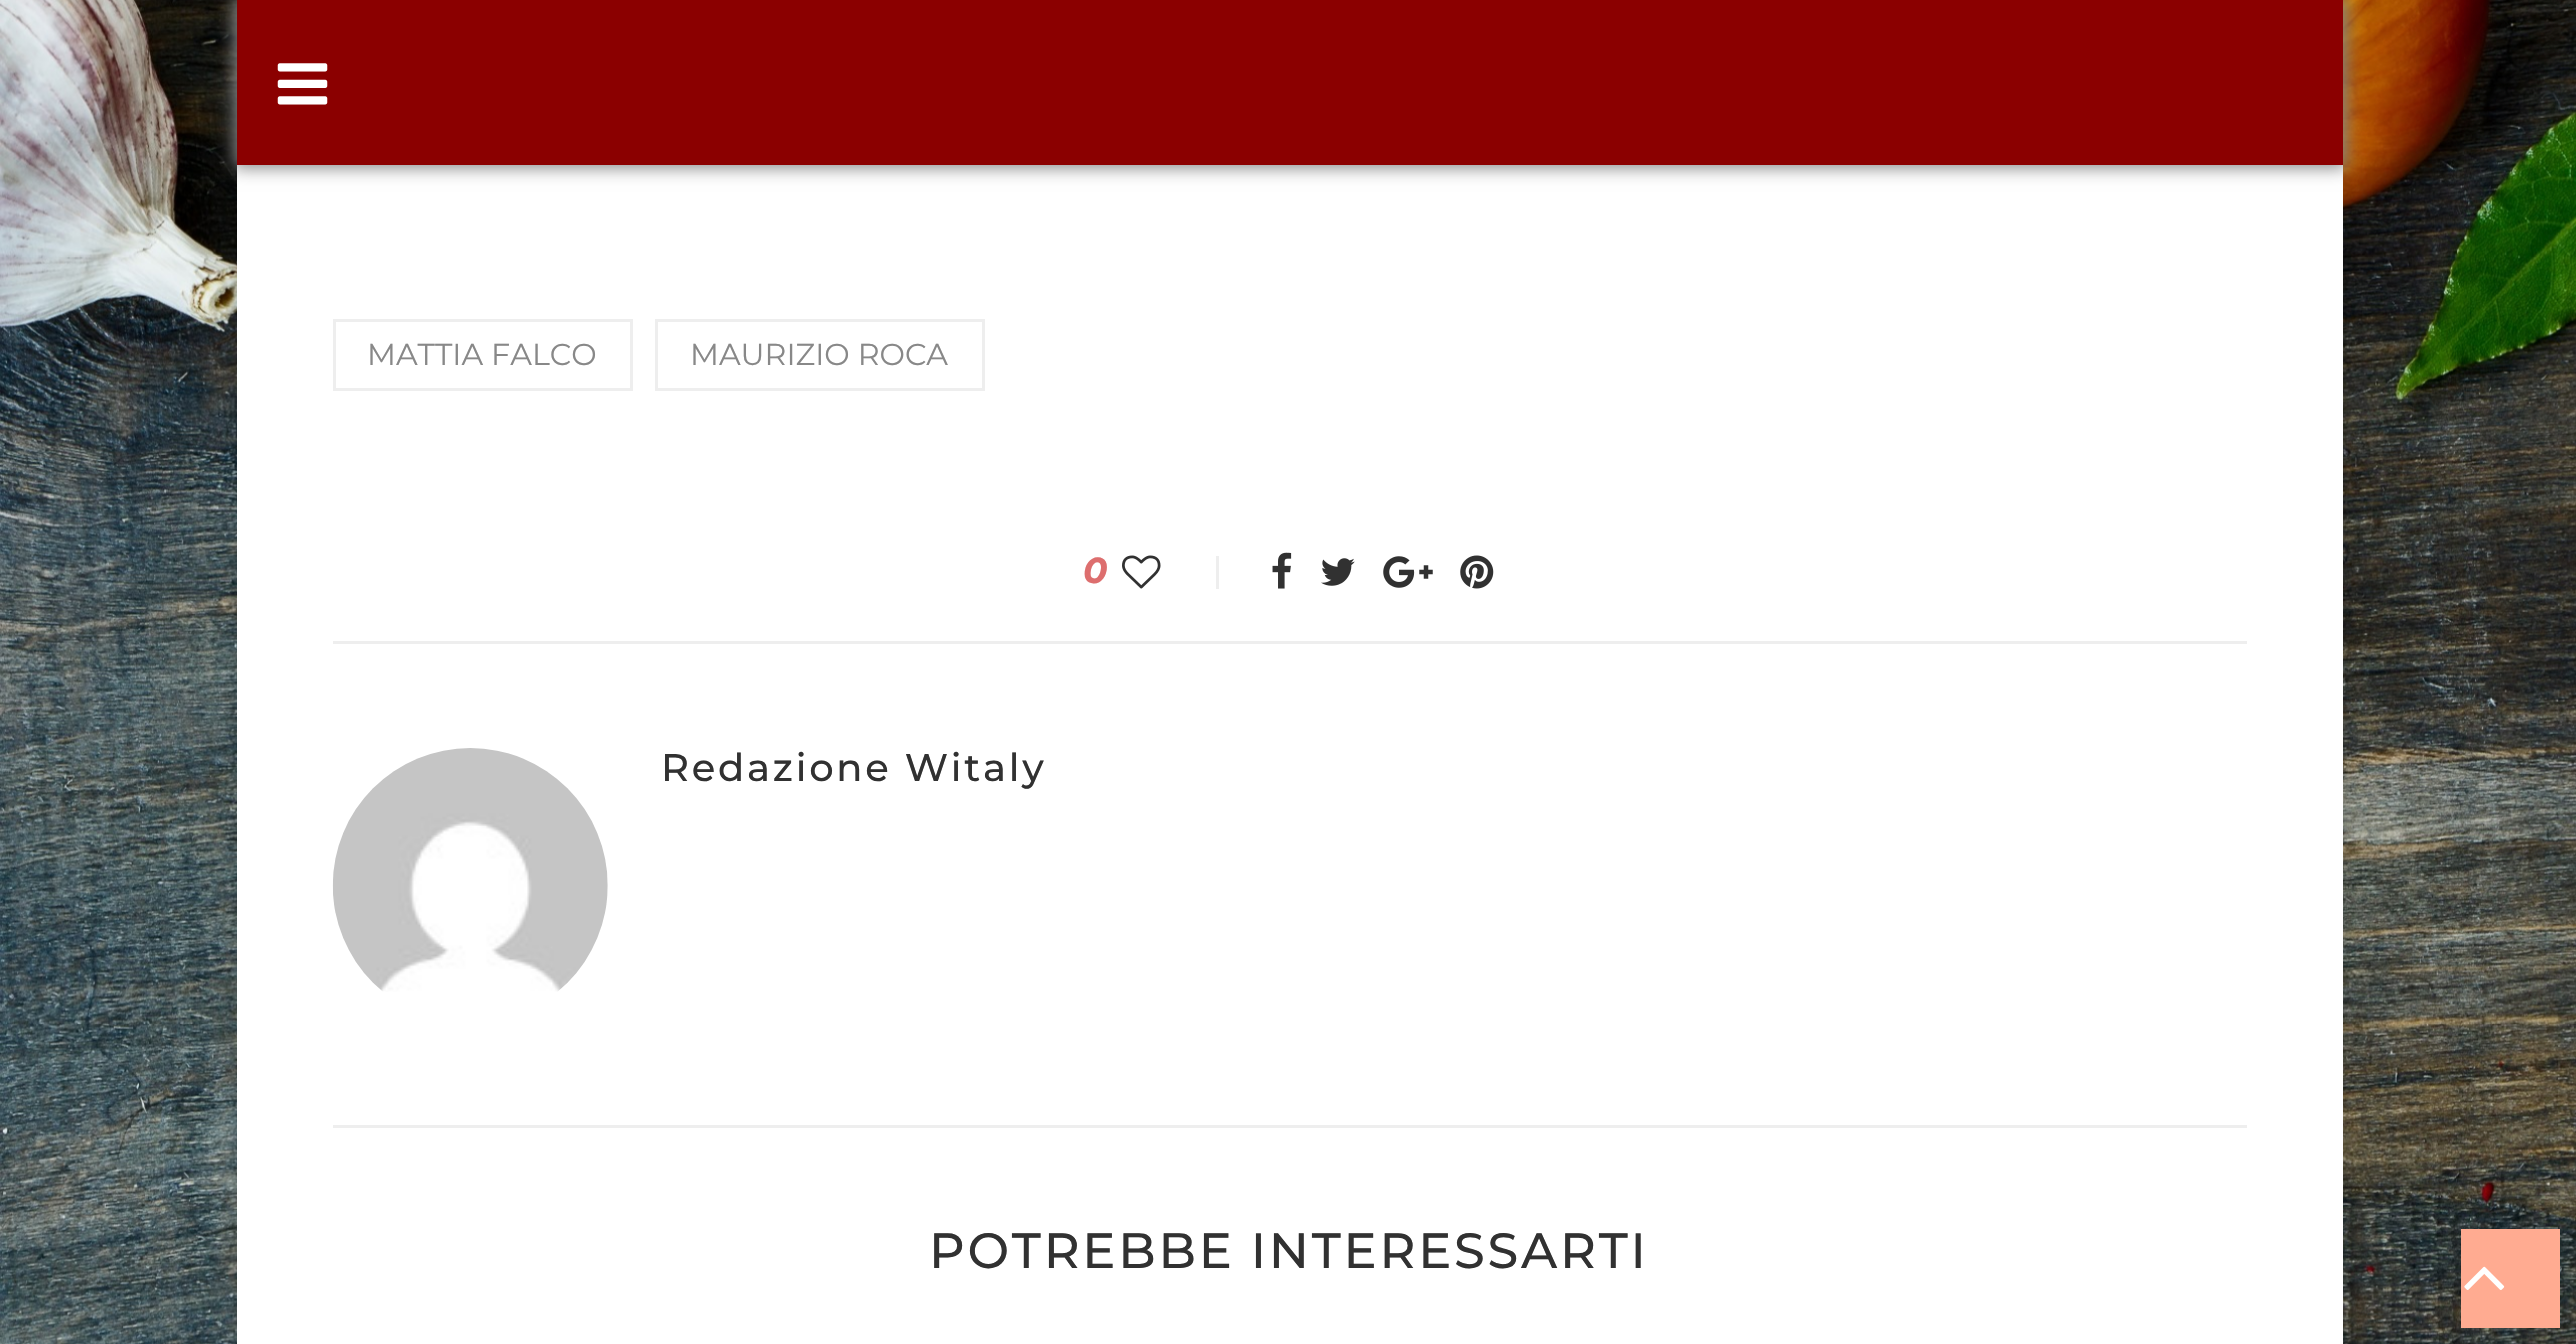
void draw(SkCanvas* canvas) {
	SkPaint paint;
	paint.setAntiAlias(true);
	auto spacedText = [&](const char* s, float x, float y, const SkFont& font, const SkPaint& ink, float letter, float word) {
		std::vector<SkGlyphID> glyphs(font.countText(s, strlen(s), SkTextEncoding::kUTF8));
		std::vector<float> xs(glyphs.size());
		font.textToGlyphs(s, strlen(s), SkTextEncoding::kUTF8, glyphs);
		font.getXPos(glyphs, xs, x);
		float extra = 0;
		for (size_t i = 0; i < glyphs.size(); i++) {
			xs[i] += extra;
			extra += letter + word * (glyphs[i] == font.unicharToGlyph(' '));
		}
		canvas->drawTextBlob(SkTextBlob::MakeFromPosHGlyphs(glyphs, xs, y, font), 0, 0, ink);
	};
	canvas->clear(0xffffffff);
	canvas->drawImageRect(SkImages::DeferredFromEncodedData(SkData::MakeFromFileName("img1.png")), SkRect::MakeXYWH(0, 0, 2576, 1344), SkSamplingOptions());
	paint.setColor(0x33000000);
	paint.setMaskFilter(SkMaskFilter::MakeBlur(kNormal_SkBlurStyle, 11));
	canvas->drawRect(SkRect::MakeXYWH(237, -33, 2106, 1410), paint);
	paint.setMaskFilter(nullptr);
	paint.setColor(0xffffffff);
	canvas->drawRect(SkRect::MakeXYWH(237, 165, 2106, 1179), paint);
	paint.setColor(0xff888888);
	paint.setMaskFilter(SkMaskFilter::MakeBlur(kNormal_SkBlurStyle, 8));
	canvas->drawRect(SkRect::MakeXYWH(234, -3, 2112, 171), paint);
	paint.setMaskFilter(nullptr);
	paint.setColor(0xff8b0000);
	canvas->drawRect(SkRect::MakeXYWH(237, 0, 2106, 165), paint);
	canvas->drawImageRect(SkImages::DeferredFromEncodedData(SkData::MakeFromFileName("img2.png")), SkRect::MakeXYWH(277, 63, 51, 42), SkSamplingOptions());
	paint.setStroke(true);
	paint.setStrokeWidth(3);
	paint.setColor(0xffeeeeee);
	canvas->drawRect(SkRect::MakeXYWH(334.5, 320.5, 297, 69), paint);
	SkFont f1(fontMgr->matchFamilyStyle("Montserrat", SkFontStyle::Normal()), 30.25);
	f1.setSubpixel(true);
	paint.setStroke(false);
	paint.setColor(0xff888888);
	canvas->drawString("MATTIA FALCO", 367, 365, f1, paint);
	paint.setStroke(true);
	paint.setColor(0xffeeeeee);
	canvas->drawRect(SkRect::MakeXYWH(656.5, 320.5, 327, 69), paint);
	paint.setStroke(false);
	paint.setColor(0xff888888);
	canvas->drawString("MAURIZIO ROCA", 690, 365, f1, paint);
	SkFont f2(fontMgr->matchFamilyStyle("Montserrat", SkFontStyle::BoldItalic()), 36);
	f2.setSubpixel(true);
	paint.setColor(0xffdd6e6e);
	canvas->drawString("0", 1083, 583, f2, paint);
	canvas->drawImageRect(SkImages::DeferredFromEncodedData(SkData::MakeFromFileName("img3.png")), SkRect::MakeXYWH(1122, 555, 39, 34), SkSamplingOptions());
	paint.setColor(0xffeeeeee);
	canvas->drawRect(SkRect::MakeXYWH(1216, 556, 3, 33), paint);
	canvas->drawImageRect(SkImages::DeferredFromEncodedData(SkData::MakeFromFileName("img4.png")), SkRect::MakeXYWH(1272, 552, 20, 37), SkSamplingOptions());
	canvas->drawImageRect(SkImages::DeferredFromEncodedData(SkData::MakeFromFileName("img5.png")), SkRect::MakeXYWH(1321, 558, 34, 28), SkSamplingOptions());
	canvas->drawImageRect(SkImages::DeferredFromEncodedData(SkData::MakeFromFileName("img6.png")), SkRect::MakeXYWH(1383, 556, 50, 32), SkSamplingOptions());
	canvas->drawImageRect(SkImages::DeferredFromEncodedData(SkData::MakeFromFileName("img7.png")), SkRect::MakeXYWH(1460, 555, 34, 34), SkSamplingOptions());
	canvas->drawRect(SkRect::MakeXYWH(333, 641, 1914, 3), paint);
	canvas->drawImageRect(SkImages::DeferredFromEncodedData(SkData::MakeFromFileName("img8.png")), SkRect::MakeXYWH(332, 748, 276, 244), SkSamplingOptions());
	SkFont f3(fontMgr->matchFamilyStyle("Montserrat", SkFontStyle(500, SkFontStyle::kNormal_Width, SkFontStyle::kUpright_Slant)), 38.5);
	f3.setSubpixel(true);
	paint.setColor(0xff313131);
	spacedText("Redazione Witaly", 661, 781, f3, paint, 2.75, 0);
	paint.setColor(0xffeeeeee);
	canvas->drawRect(SkRect::MakeXYWH(333, 1125, 1914, 3), paint);
	SkFont f4(fontMgr->matchFamilyStyle("Montserrat", SkFontStyle(500, SkFontStyle::kNormal_Width, SkFontStyle::kUpright_Slant)), 49.5);
	f4.setSubpixel(true);
	paint.setColor(0xff313131);
	spacedText("POTREBBE INTERESSARTI", 929, 1268, f4, paint, 2.75, 0);
	paint.setColor(0xffffab91);
	canvas->drawRect(SkRect::MakeXYWH(2461, 1229, 99, 99), paint);
	canvas->drawImageRect(SkImages::DeferredFromEncodedData(SkData::MakeFromFileName("img9.png")), SkRect::MakeXYWH(2464, 1266, 41, 24), SkSamplingOptions());
}
